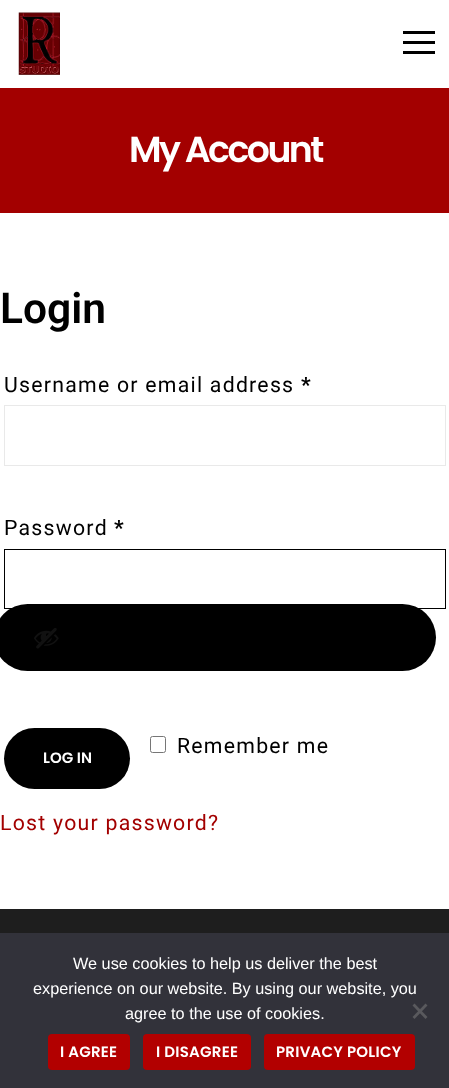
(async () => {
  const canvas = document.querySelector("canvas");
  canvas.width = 449;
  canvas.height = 1088;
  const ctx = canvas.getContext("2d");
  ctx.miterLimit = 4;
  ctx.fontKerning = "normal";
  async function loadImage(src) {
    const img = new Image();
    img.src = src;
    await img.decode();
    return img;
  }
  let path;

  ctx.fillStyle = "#ffffff";
  ctx.fillRect(0, 0, 449, 1088);
  ctx.drawImage(await loadImage("img/1.png"), 18, 12, 42, 63);
  for (const [x, y, w, h, color] of [
    [403, 31, 32, 3, "#000000"],
    [403, 41, 32, 3, "#000000"],
    [403, 51, 32, 3, "#000000"],
    [0, 88, 449, 125, "#a30000"],
  ]) {
    ctx.fillStyle = color;
    ctx.fillRect(x, y, w, h);
  }
  ctx.strokeStyle = "#e9e9e9";
  ctx.strokeRect(4.5, 405.5, 441, 60);
  ctx.strokeStyle = "#000000";
  ctx.strokeRect(4.5, 549.5, 441, 59);
  ctx.fillStyle = "#000000";
  ctx.beginPath();
  ctx.roundRect(-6, 604, 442, 67, 33.5);
  ctx.fill();
  ctx.drawImage(await loadImage("img/2.png"), 34, 628, 25, 21);
  ctx.beginPath();
  ctx.roundRect(150.5, 736.5, 15, 16, 2);
  ctx.strokeStyle = "#767676";
  ctx.stroke();
  ctx.beginPath();
  ctx.roundRect(4, 728, 126, 61, 30.5);
  ctx.fill();
  ctx.fillStyle = "#1e1e1e";
  ctx.fillRect(0, 909, 449, 24);
  ctx.fillStyle = "#32323a";
  ctx.fillRect(0, 933, 449, 155);
  ctx.fillStyle = "#59595d";
  path = new Path2D("M425.5 1003.5L427.5 1005.5L414.5 1019L412.5 1017Z");
  ctx.fill(path);
  path = new Path2D("M412.5 1005.5L414.5 1003.5L427.5 1017L425.5 1019Z");
  ctx.fill(path);
  ctx.fillStyle = "#b20000";
  ctx.beginPath();
  ctx.roundRect(48, 1034, 82, 36, 4);
  ctx.fill();
  ctx.beginPath();
  ctx.roundRect(143, 1034, 108, 36, 4);
  ctx.fill();
  ctx.beginPath();
  ctx.roundRect(264, 1034, 151, 36, 4);
  ctx.fill();
  ctx.letterSpacing = "-2.5px";
  ctx.font = "600 36.25px Poppins";
  ctx.fillStyle = "#ffffff";
  ctx.fillText("My Account", 129, 162);
  ctx.letterSpacing = "0px";
  ctx.font = "600 42.5px Roboto";
  ctx.fillStyle = "#000000";
  ctx.fillText("Login", 0, 323);
  ctx.letterSpacing = "1.25px";
  ctx.font = "21.25px Roboto";
  ctx.fillText("Username or email address", 4, 392);
  ctx.font = "bold 21.25px Roboto";
  ctx.fillText("*", 301, 392);
  ctx.font = "21.25px Roboto";
  ctx.fillText("Password", 4, 535);
  ctx.font = "bold 21.25px Roboto";
  ctx.fillText("*", 114, 535);
  ctx.font = "21.25px Roboto";
  ctx.fillText("Remember me", 177, 753);
  ctx.letterSpacing = "0px";
  ctx.font = "600 15px Poppins";
  ctx.fillStyle = "#ffffff";
  ctx.fillText("LOG IN", 43, 763);
  ctx.letterSpacing = "1.25px";
  ctx.font = "21.25px Roboto";
  ctx.fillStyle = "#a30000";
  ctx.fillText("Lost your password?", 0, 830);
  ctx.letterSpacing = "0px";
  ctx.font = "16.25px Liberation Sans";
  ctx.fillStyle = "#ffffff";
  for (const [text, x, y] of [
    ["We use cookies to help us deliver the best", 73, 969],
    ["experience on our website. By using our website, you", 33, 994],
    ["agree to the use of cookies.", 125, 1019],
  ]) {
    ctx.fillText(text, x, y);
  }
  ctx.letterSpacing = "0.25px";
  ctx.font = "600 15px Poppins";
  for (const [text, x, y] of [
    ["I AGREE", 60, 1057],
    ["I DISAGREE", 156, 1057],
    ["PRIVACY POLICY", 276, 1057],
  ]) {
    ctx.fillText(text, x, y);
  }
})();
